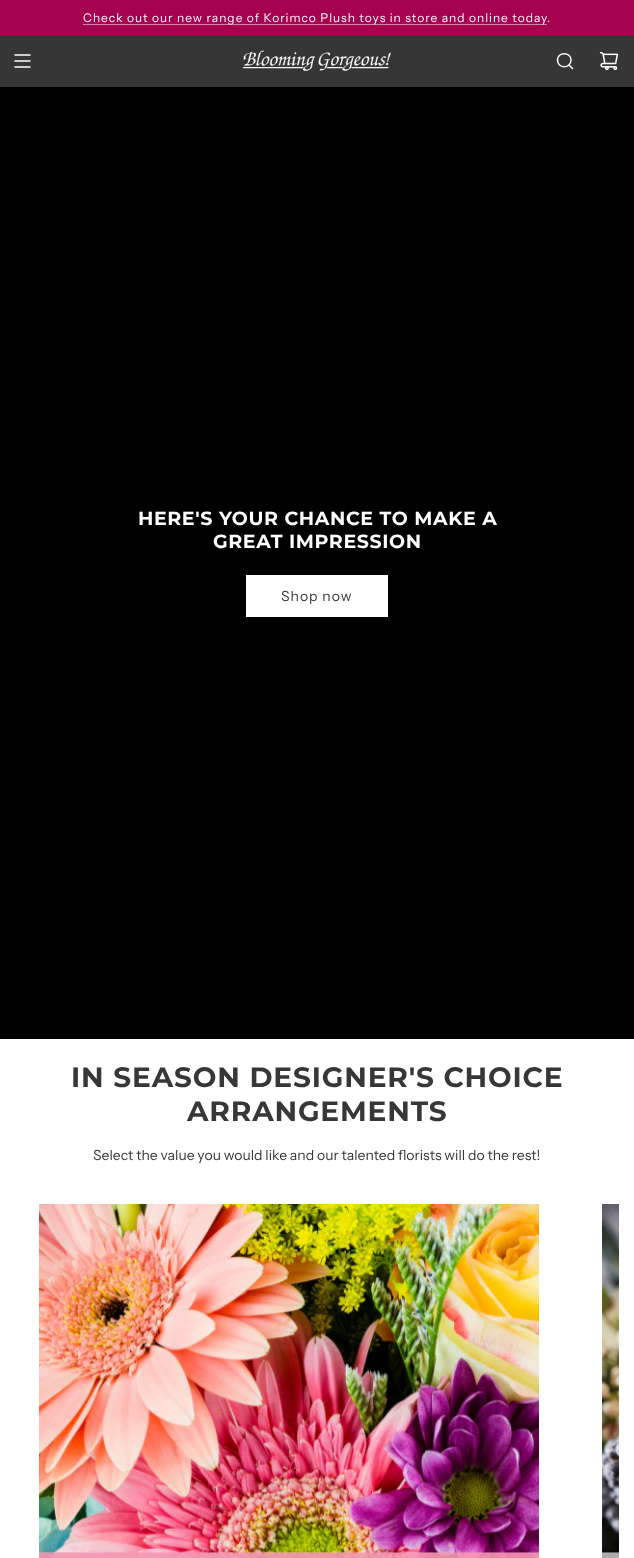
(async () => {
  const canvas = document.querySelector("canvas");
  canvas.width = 634;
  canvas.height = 1558;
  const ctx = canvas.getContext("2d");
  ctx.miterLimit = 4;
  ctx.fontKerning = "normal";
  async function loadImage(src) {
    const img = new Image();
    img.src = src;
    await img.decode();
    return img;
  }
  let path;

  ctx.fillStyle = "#ffffff";
  ctx.fillRect(0, 0, 634, 1558);
  for (const [x, y, w, h, color] of [
    [0, 0, 634, 35, "#a60150"],
    [83, 24, 464, 1, "#d380a8"],
    [0, 35, 634, 52, "#363636"],
  ]) {
    ctx.fillStyle = color;
    ctx.fillRect(x, y, w, h);
  }
  path = new Path2D("M15 55H30M15 61H30M15 67H30");
  ctx.strokeStyle = "#ffffff";
  ctx.lineWidth = 1.5;
  ctx.lineCap = "round";
  ctx.lineJoin = "round";
  ctx.stroke(path);
  ctx.drawImage(await loadImage("img/1.png"), 242, 50, 150, 22);
  path = new Path2D("M569 65L572.5 68.5M557.5 60C557.5 69 571 69 571 60C571 51.5 557.5 51.5 557.5 60Z");
  ctx.stroke(path);
  ctx.drawImage(await loadImage("img/2.png"), 599, 51, 20, 20);
  ctx.fillStyle = "#000000";
  ctx.fillRect(0, 87, 634, 952);
  ctx.fillStyle = "#ffffff";
  ctx.fillRect(246, 575, 142, 42);
  ctx.drawImage(await loadImage("img/3.png"), 39, 1204, 500, 354);
  ctx.drawImage(await loadImage("img/4.png"), 602, 1204, 17, 354);
  ctx.letterSpacing = "1px";
  ctx.font = "12px Instrument Sans";
  ctx.fillText("Check out our new range of Korimco Plush toys in store and online today", 83, 22);
  ctx.fillText(".", 547, 22);
  ctx.letterSpacing = "0.6px";
  ctx.font = "bold 19px Montserrat";
  ctx.fillText("HERE'S YOUR CHANCE TO MAKE A", 138, 525);
  ctx.fillText("GREAT IMPRESSION", 213, 548);
  ctx.letterSpacing = "1px";
  ctx.font = "14px Instrument Sans";
  ctx.fillStyle = "#373737";
  ctx.fillText("Shop now", 281, 601);
  ctx.letterSpacing = "0.85px";
  ctx.font = "bold 28px Montserrat";
  ctx.fillText("IN SEASON DESIGNER'S CHOICE", 71, 1087);
  ctx.fillText("ARRANGEMENTS", 187, 1121);
  ctx.letterSpacing = "0px";
  ctx.font = "14px Instrument Sans";
  ctx.fillText("Select the value you would like and our talented florists will do the rest!", 93, 1160);
})();
